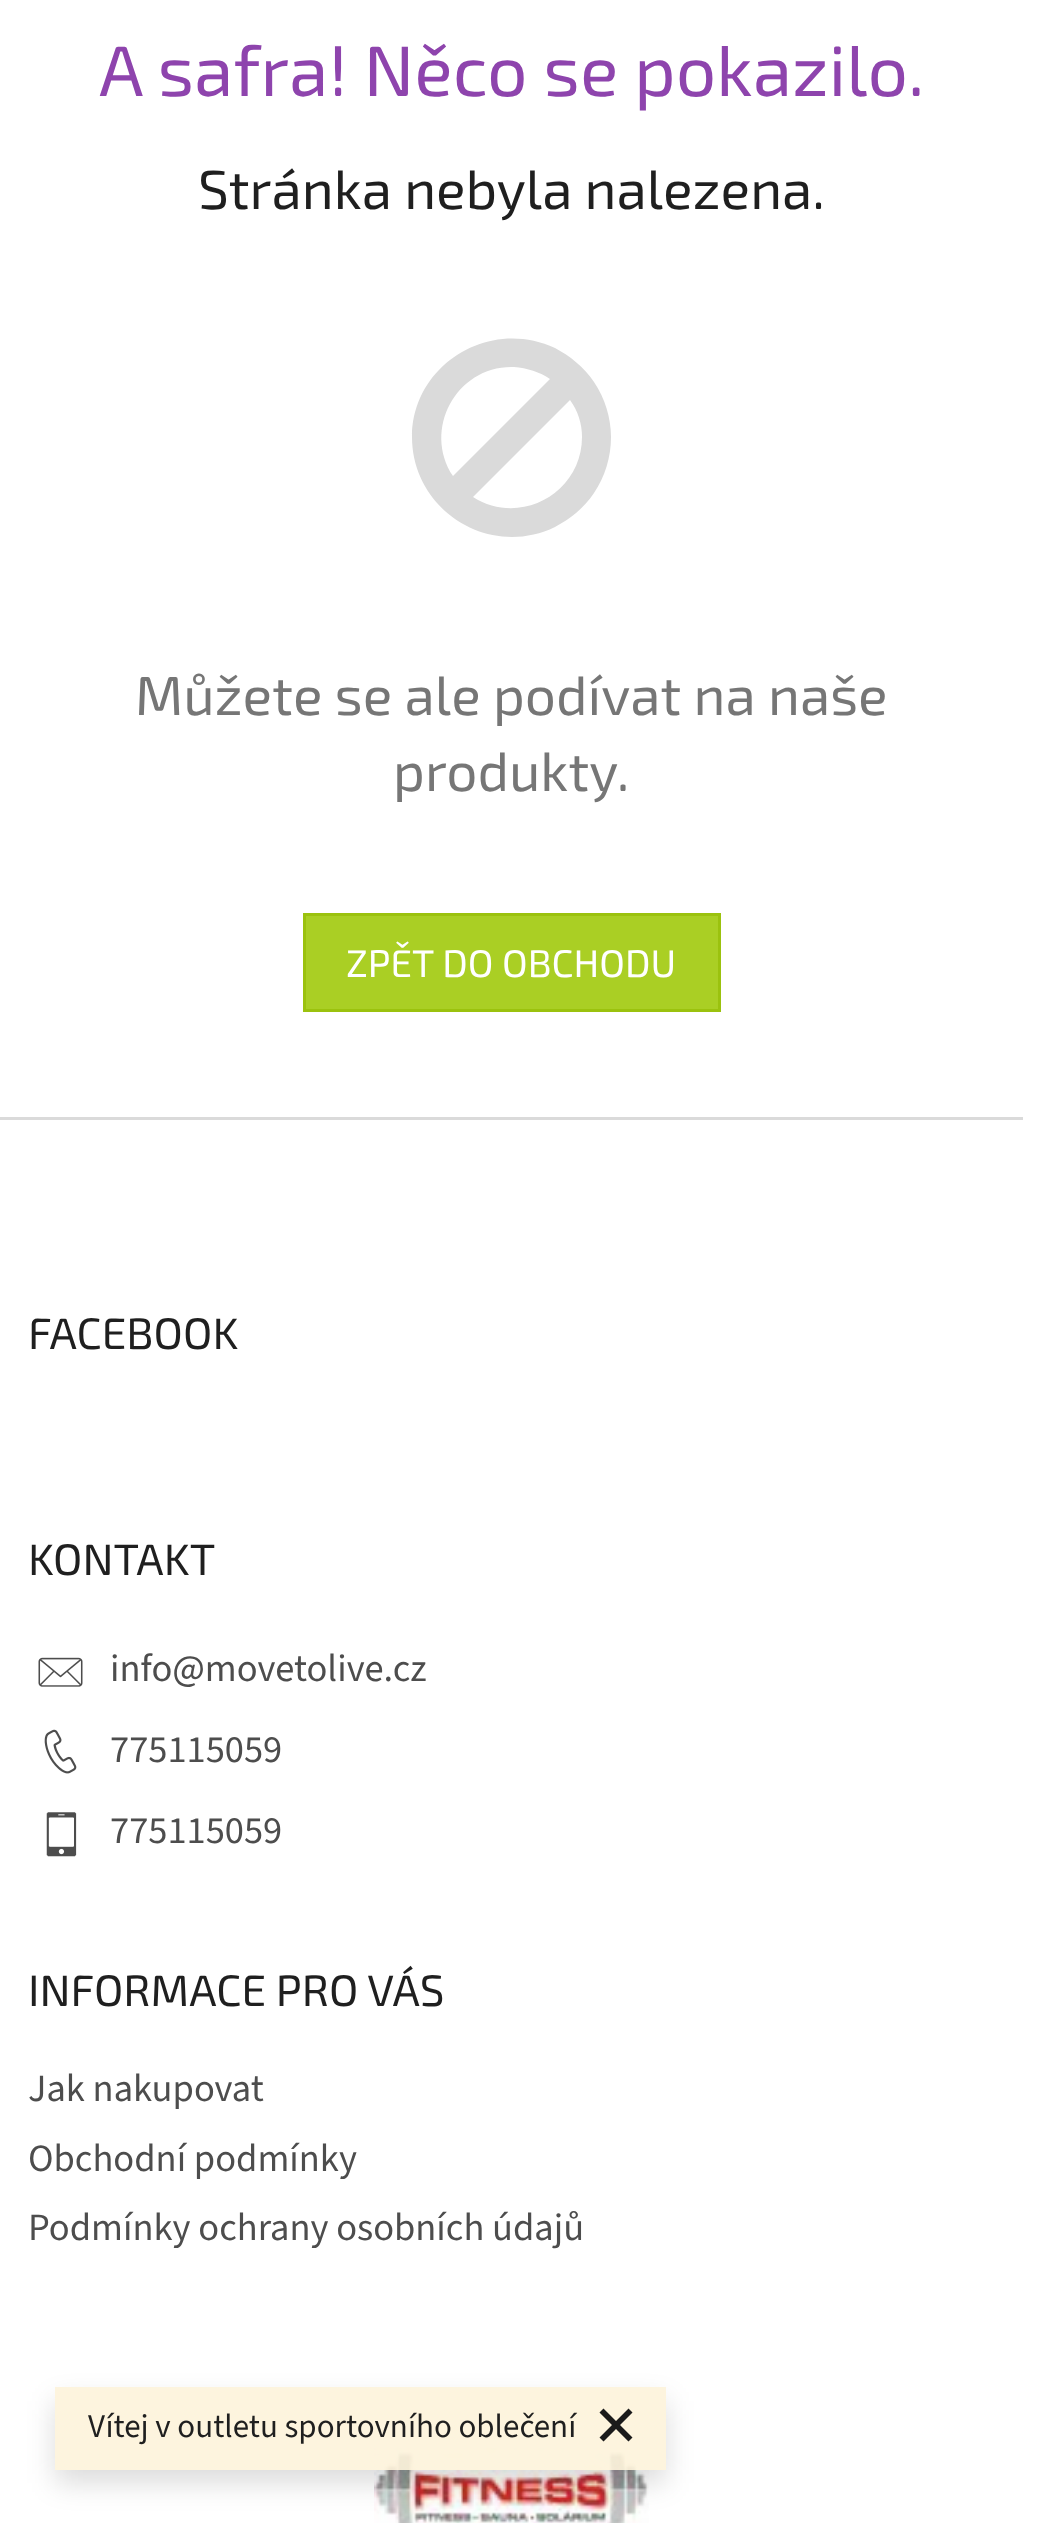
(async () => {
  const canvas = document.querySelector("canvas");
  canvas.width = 1064;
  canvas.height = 2523;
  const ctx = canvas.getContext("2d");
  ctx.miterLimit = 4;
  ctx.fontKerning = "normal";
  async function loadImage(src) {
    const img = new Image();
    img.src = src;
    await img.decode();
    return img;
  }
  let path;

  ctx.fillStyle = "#ffffff";
  ctx.fillRect(0, 0, 1064, 2523);
  ctx.fillStyle = "#dadada";
  path = new Path2D("M582 437C582 424 578 411 570 400L473 497C520 527 582 493 582 437ZM453 476L550 379C540 372 527 368 514 367C457 365 422 429 453 476ZM611 437C611 457 605 477 594 493C584 508 570 519 555 527C489 559 412 510 412 437C412 365 489 317 555 348C570 356 584 367 594 382C605 398 611 418 611 437Z");
  ctx.fill(path);
  ctx.fillStyle = "#aacf24";
  ctx.beginPath();
  ctx.rect(304.5, 914.5, 415, 96);
  ctx.fill();
  ctx.strokeStyle = "#9bc20e";
  ctx.lineWidth = 3;
  ctx.stroke();
  ctx.fillStyle = "#dadada";
  ctx.fillRect(0, 1117, 1023, 3);
  ctx.drawImage(await loadImage("img/1.png"), 38, 1657, 45, 30);
  ctx.drawImage(await loadImage("img/2.png"), 44, 1729, 33, 45);
  ctx.drawImage(await loadImage("img/3.png"), 46, 1812, 31, 45);
  ctx.drawImage(await loadImage("img/4.png"), 374, 2447, 275, 76);
  ctx.save();
  path = new Path2D("M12 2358H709V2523H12ZM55 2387H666V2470H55Z");
  ctx.clip(path, "evenodd");
  ctx.fillStyle = "rgba(0, 0, 0, 0.14)";
  ctx.filter = "blur(14px)";
  ctx.beginPath();
  ctx.rect(55, 2401, 611, 82);
  ctx.fill();
  ctx.filter = "none";
  ctx.restore();
  ctx.fillStyle = "rgba(253, 243, 218, 0.9)";
  ctx.fillRect(55, 2387, 611, 83);
  ctx.fillStyle = "#1a1a1a";
  path = new Path2D("M603.5 2408.5L599.5 2412.5L612 2425L599.5 2437.5L603.5 2441.5L616 2429L628.5 2441.5L632.5 2437.5L620 2425L632.5 2412.5L628.5 2408.5L616 2421Z");
  ctx.fill(path);
  ctx.font = "71.5px 'Exo 2'";
  ctx.fillStyle = "#8e44ad";
  ctx.fillText("A safra! Něco se pokazilo.", 99, 96);
  ctx.font = "55px 'Exo 2'";
  ctx.fillStyle = "#1f1f1f";
  ctx.fillText("Stránka nebyla nalezena.", 198, 209);
  ctx.fillStyle = "#767676";
  ctx.fillText("Můžete se ale podívat na naše", 135, 715);
  ctx.fillText("produkty.", 393, 791);
  ctx.font = "38.5px 'Exo 2'";
  ctx.fillStyle = "#ffffff";
  ctx.fillText("ZPĚT DO OBCHODU", 346, 977);
  ctx.font = "44px 'Exo 2'";
  ctx.fillStyle = "#1f1f1f";
  ctx.fillText("FACEBOOK", 28, 1349);
  ctx.fillText("KONTAKT", 28, 1575);
  ctx.font = "38.5px 'Source Sans 3'";
  ctx.fillStyle = "#4d4d4d";
  for (const [text, x, y] of [
    ["info@movetolive.cz", 110, 1681],
    ["775115059", 110, 1762],
    ["775115059", 110, 1843],
  ]) {
    ctx.fillText(text, x, y);
  }
  ctx.font = "44px 'Exo 2'";
  ctx.fillStyle = "#1f1f1f";
  ctx.fillText("INFORMACE PRO VÁS", 28, 2006);
  ctx.font = "38.5px 'Source Sans 3'";
  ctx.fillStyle = "#4d4d4d";
  for (const [text, x, y] of [
    ["Jak nakupovat", 28, 2101],
    ["Obchodní podmínky", 28, 2171],
    ["Podmínky ochrany osobních údajů", 28, 2240],
  ]) {
    ctx.fillText(text, x, y);
  }
  ctx.font = "33px 'Source Sans 3'";
  ctx.fillStyle = "#1f1f1f";
  ctx.fillText("Vítej v outletu sportovního oblečení", 88, 2437);
})();
